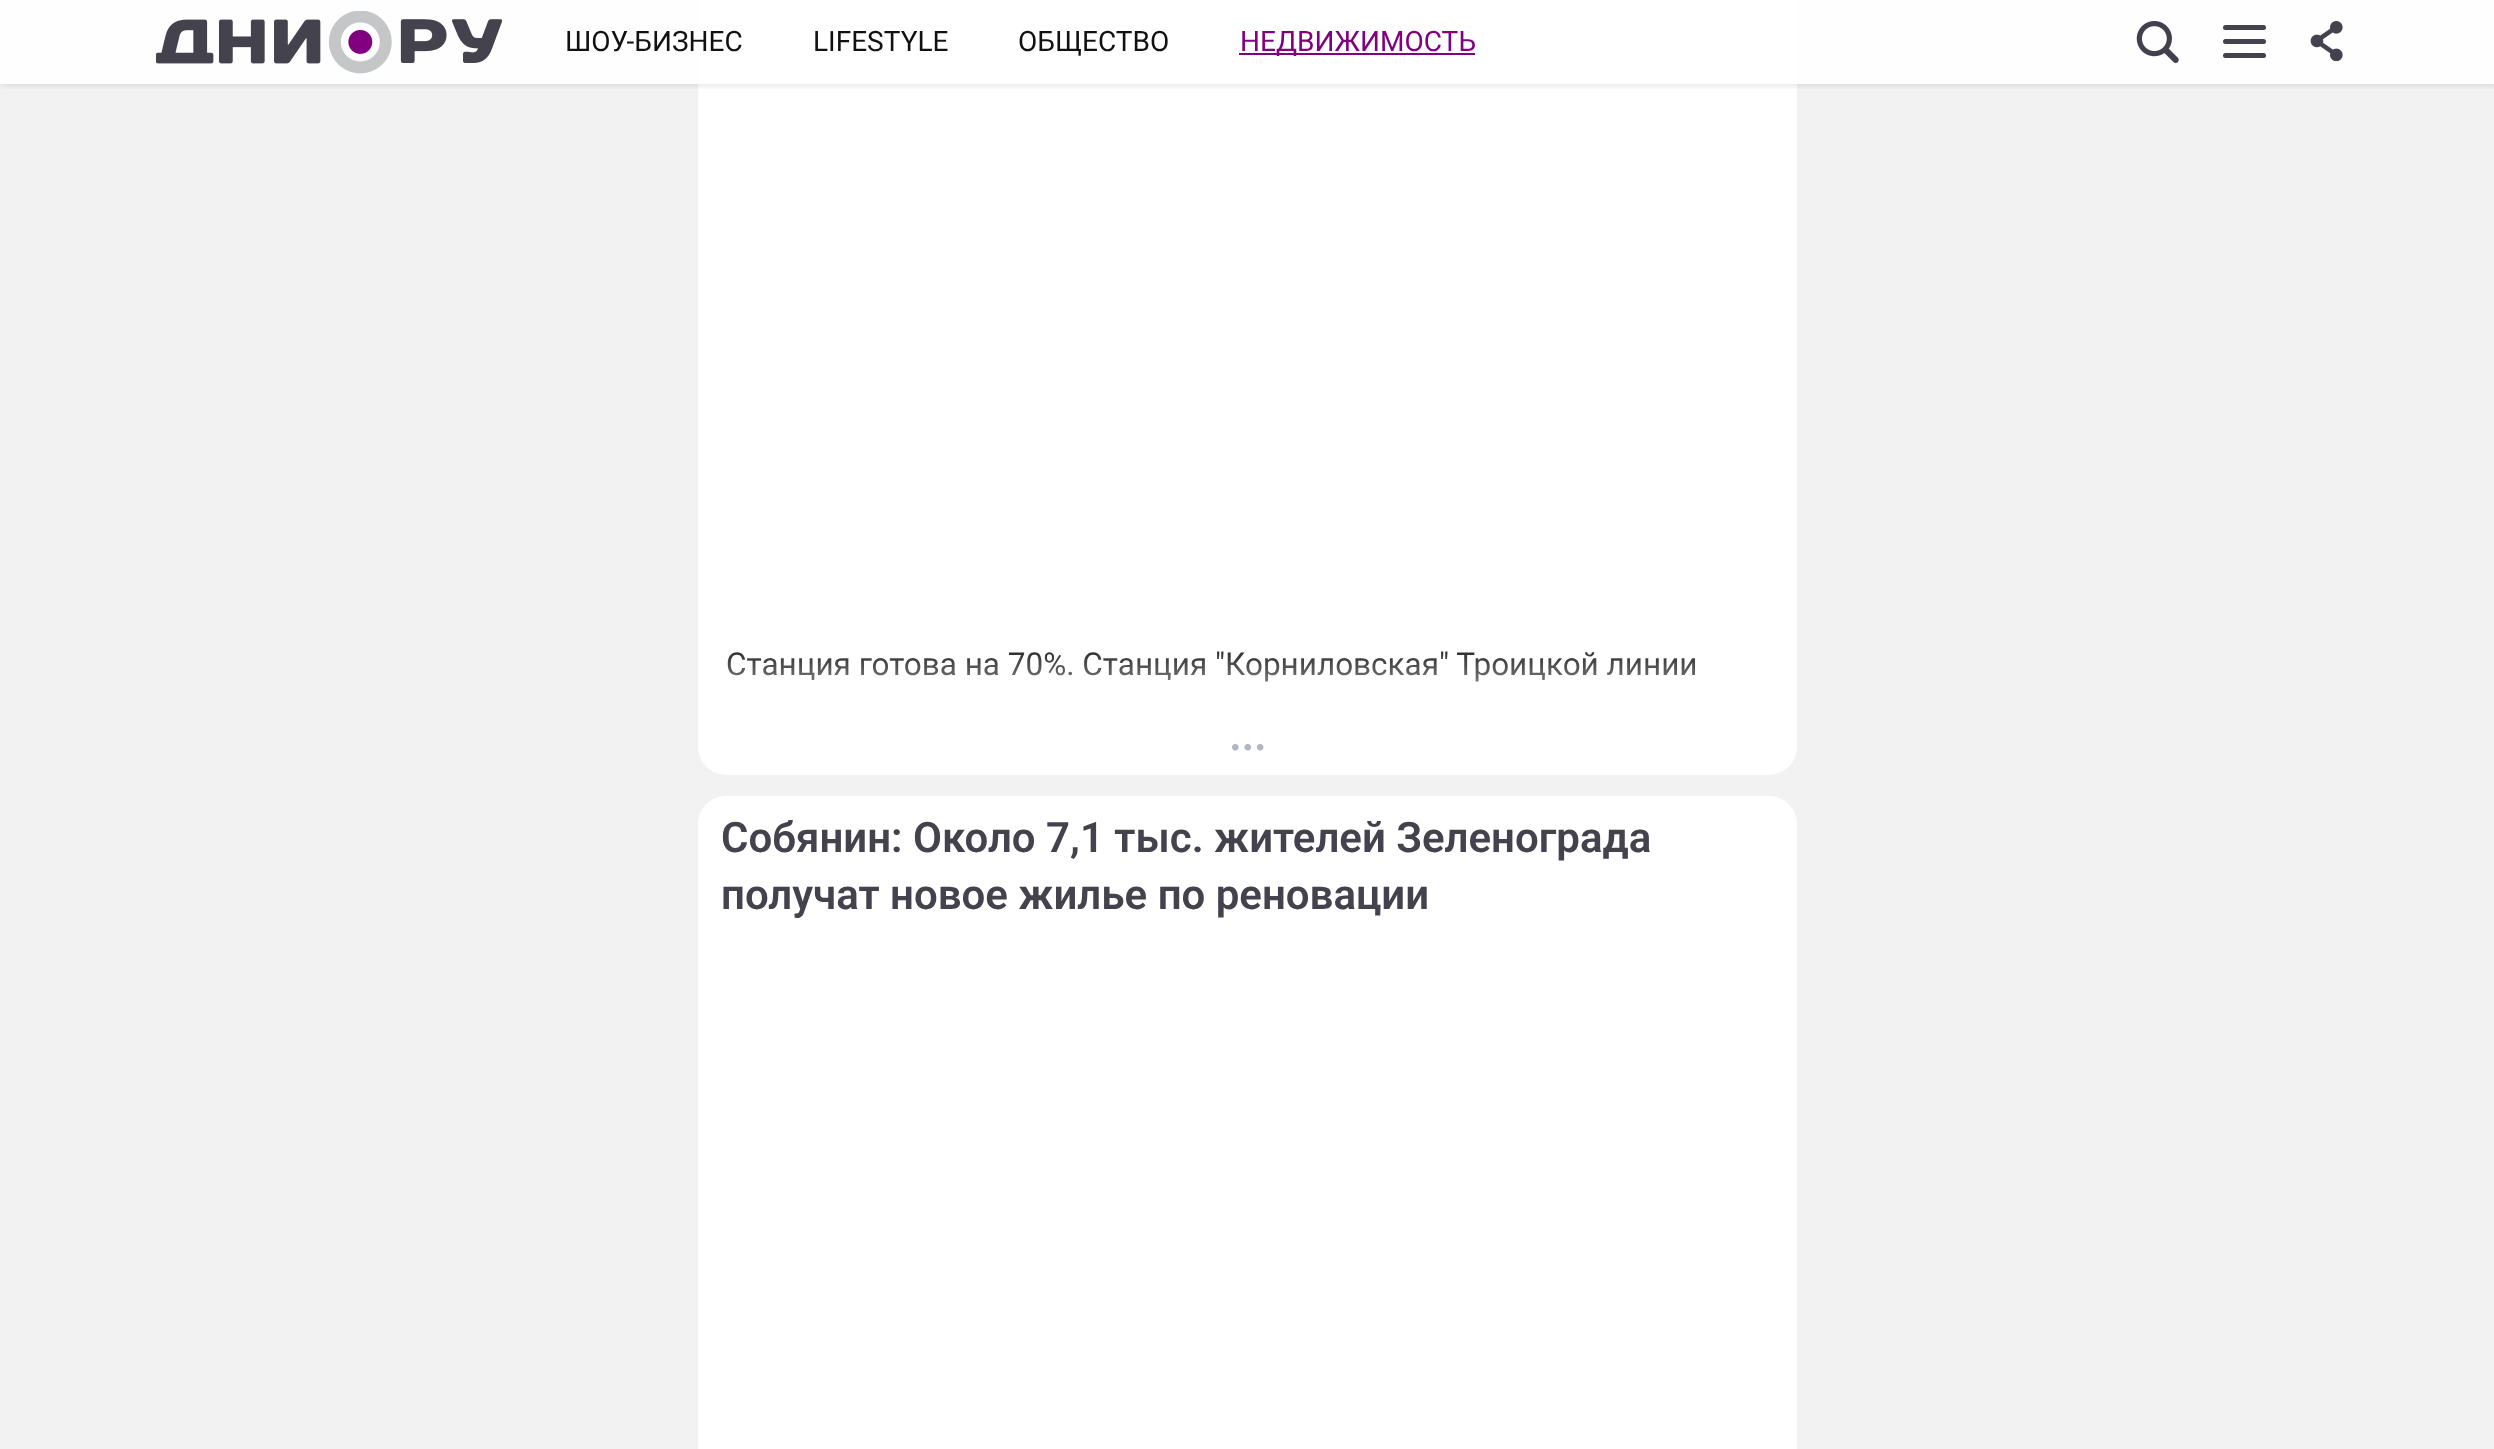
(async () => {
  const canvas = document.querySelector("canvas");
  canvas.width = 2494;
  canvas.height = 1449;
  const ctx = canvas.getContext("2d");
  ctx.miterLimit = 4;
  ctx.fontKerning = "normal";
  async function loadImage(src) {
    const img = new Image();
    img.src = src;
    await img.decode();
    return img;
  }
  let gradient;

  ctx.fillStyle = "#f2f2f2";
  ctx.fillRect(0, 0, 2494, 1449);
  ctx.fillStyle = "#fefefe";
  ctx.fillRect(0, 0, 2494, 84);
  ctx.fillStyle = "#ffffff";
  ctx.beginPath();
  ctx.roundRect(698, -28, 1099, 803, 28);
  ctx.fill();
  ctx.save();
  ctx.beginPath();
  ctx.rect(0, 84, 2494, 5);
  ctx.clip();
  ctx.fillStyle = "rgba(0, 0, 0, 0.1)";
  ctx.filter = "blur(3.5px)";
  ctx.beginPath();
  ctx.rect(2, 2, 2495, 84);
  ctx.fill();
  ctx.filter = "none";
  ctx.restore();
  ctx.drawImage(await loadImage("img/1.png"), 156, 11, 346, 63);
  ctx.fillStyle = "#800080";
  ctx.fillRect(1239, 53, 236, 2);
  ctx.drawImage(await loadImage("img/2.png"), 2136, 21, 43, 42);
  ctx.fillStyle = "#43424d";
  ctx.beginPath();
  ctx.roundRect(2223, 39, 43, 5, 2.5);
  ctx.fill();
  ctx.beginPath();
  ctx.roundRect(2223, 25, 43, 5, 2.5);
  ctx.fill();
  ctx.beginPath();
  ctx.roundRect(2223, 53, 43, 5, 2.5);
  ctx.fill();
  ctx.drawImage(await loadImage("img/3.png"), 2310, 21, 33, 40);
  ctx.drawImage(await loadImage("img/4.png"), 1232, 744, 32, 7);
  ctx.fillStyle = "#ffffff";
  ctx.beginPath();
  ctx.roundRect(698, 796, 1099, 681, 28);
  ctx.fill();
  ctx.font = "28px Roboto";
  ctx.fillStyle = "#111111";
  for (const [text, x, y] of [
    ["ШОУ-БИЗНЕС", 565, 51],
    ["LIFESTYLE", 813, 51],
    ["ОБЩЕСТВО", 1018, 51],
  ]) {
    ctx.fillText(text, x, y);
  }
  ctx.fillStyle = "#800080";
  ctx.fillText("НЕДВИЖИМОСТЬ", 1240, 51);
  ctx.font = "31.5px Roboto";
  ctx.fillStyle = "#111111";
  ctx.fillText("Станция готова на 70%. Станция \"Корниловская\" Троицкой линии", 726, 675);
  gradient = ctx.createLinearGradient(1248, 640, 1248, 728);
  gradient.addColorStop(0, "rgba(255, 255, 255, 0)");
  gradient.addColorStop(1, "rgba(255, 255, 255, 0.9)");
  ctx.fillStyle = gradient;
  ctx.fillRect(728, 651, 968, 31);
  ctx.font = "600 42px Roboto";
  ctx.fillStyle = "#43424d";
  ctx.fillText("Собянин: Около 7,1 тыс. жителей Зеленограда", 721, 852);
  ctx.fillText("получат новое жилье по реновации", 721, 909);
})();
